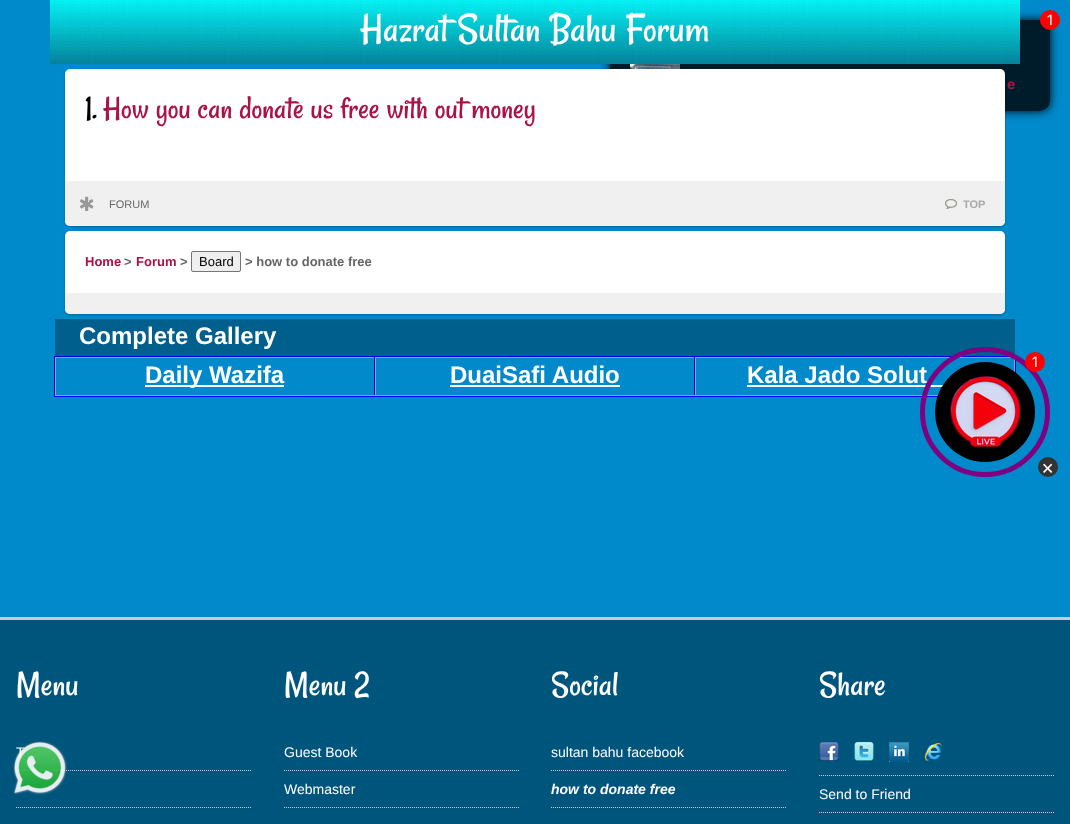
(async () => {
  const canvas = document.querySelector("canvas");
  canvas.width = 1070;
  canvas.height = 824;
  const ctx = canvas.getContext("2d");
  ctx.miterLimit = 4;
  ctx.fontKerning = "normal";
  async function loadImage(src) {
    const img = new Image();
    img.src = src;
    await img.decode();
    return img;
  }
  let path;

  ctx.fillStyle = "#0089cb";
  ctx.fillRect(0, 0, 1070, 824);
  ctx.save();
  path = new Path2D("M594 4H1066V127H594ZM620 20H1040C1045.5 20 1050 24.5 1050 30V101C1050 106.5 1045.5 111 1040 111H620C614.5 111 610 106.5 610 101V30C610 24.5 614.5 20 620 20Z");
  ctx.clip(path, "evenodd");
  ctx.fillStyle = "#000000";
  ctx.filter = "blur(5px)";
  ctx.beginPath();
  ctx.roundRect(610, 20, 440, 91, 10);
  ctx.fill();
  ctx.filter = "none";
  ctx.restore();
  ctx.fillStyle = "rgba(0, 0, 0, 0.8)";
  ctx.beginPath();
  ctx.roundRect(610, 20, 440, 91, 10);
  ctx.fill();
  ctx.drawImage(await loadImage("img/1.png"), 50, 0, 970, 64);
  ctx.drawImage(await loadImage("img/5.png"), 630, 64, 50, 5);
  ctx.fillStyle = "rgba(0, 0, 0, 0.25)";
  ctx.filter = "blur(1px)";
  ctx.beginPath();
  ctx.roundRect(65, 70, 940, 157, 5);
  ctx.fill();
  ctx.filter = "none";
  ctx.fillStyle = "#ffffff";
  ctx.beginPath();
  ctx.roundRect(65, 69, 940, 157, 5);
  ctx.fill();
  ctx.fillStyle = "#f0f0f0";
  ctx.beginPath();
  ctx.roundRect(65, 181, 940, 45, [0, 0, 5, 5]);
  ctx.fill();
  ctx.drawImage(await loadImage("img/2.png"), 80, 196, 14, 15);
  ctx.drawImage(await loadImage("img/3.png"), 945, 199, 12, 10);
  ctx.fillStyle = "rgba(0, 0, 0, 0.25)";
  ctx.filter = "blur(1px)";
  ctx.beginPath();
  ctx.roundRect(65, 232, 940, 83, 5);
  ctx.fill();
  ctx.filter = "none";
  ctx.fillStyle = "#ffffff";
  ctx.beginPath();
  ctx.roundRect(65, 231, 940, 83, 5);
  ctx.fill();
  ctx.fillStyle = "#efefef";
  ctx.beginPath();
  ctx.roundRect(191.5, 251.5, 49, 20, 1.5);
  ctx.fill();
  ctx.strokeStyle = "#767676";
  ctx.stroke();
  ctx.fillStyle = "#f0f0f0";
  ctx.beginPath();
  ctx.roundRect(65, 293, 940, 21, [0, 0, 5, 5]);
  ctx.fill();
  ctx.fillStyle = "#005f8c";
  ctx.fillRect(55, 319, 960, 37);
  ctx.strokeStyle = "#0000ff";
  ctx.strokeRect(54.5, 356.5, 961, 40);
  for (const [x, y, w, h, color] of [
    [55, 357, 640, 1, "#a1a1a1"],
    [374, 357, 1, 39, "#0000ff"],
    [55, 395, 320, 1, "#a1a1a1"],
    [55, 357, 1, 39, "#a1a1a1"],
    [145, 385, 139, 2, "#ffffff"],
    [694, 357, 1, 39, "#0000ff"],
    [375, 395, 320, 1, "#a1a1a1"],
    [375, 357, 1, 39, "#a1a1a1"],
    [450, 385, 170, 2, "#ffffff"],
  ]) {
    ctx.fillStyle = color;
    ctx.fillRect(x, y, w, h);
  }
  ctx.strokeStyle = "#a1a1a1";
  ctx.strokeRect(695.5, 357.5, 319, 38);
  ctx.fillRect(747, 385, 196, 2);
  ctx.fillStyle = "#333333";
  ctx.beginPath();
  ctx.arc(1048, 467, 10, 0, Math.PI * 2);
  ctx.fill();
  ctx.fillStyle = "#ff0000";
  ctx.beginPath();
  ctx.arc(1050, 20, 10, 0, Math.PI * 2);
  ctx.fill();
  ctx.fillStyle = "#00557d";
  ctx.fillRect(0, 620, 1070, 204);
  ctx.fillStyle = "#cccccc";
  ctx.fillRect(0, 617, 1070, 3);
  path = new Path2D("M16 770.5H252");
  ctx.strokeStyle = "#cccccc";
  ctx.setLineDash([1, 1]);
  ctx.stroke(path);
  path = new Path2D("M16 807.5H252");
  ctx.stroke(path);
  path = new Path2D("M284 770.5H519");
  ctx.stroke(path);
  path = new Path2D("M284 807.5H519");
  ctx.stroke(path);
  path = new Path2D("M551 770.5H787");
  ctx.stroke(path);
  path = new Path2D("M551 807.5H787");
  ctx.stroke(path);
  path = new Path2D("M819 775.5H1054");
  ctx.stroke(path);
  ctx.drawImage(await loadImage("img/6.png"), 819, 742, 20, 20);
  ctx.drawImage(await loadImage("img/7.png"), 854, 742, 20, 19);
  ctx.drawImage(await loadImage("img/8.png"), 889, 742, 20, 20);
  ctx.drawImage(await loadImage("img/9.png"), 924, 743, 18, 18);
  path = new Path2D("M819 812.5H1054");
  ctx.stroke(path);
  ctx.font = "42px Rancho";
  ctx.fillStyle = "#ffffff";
  ctx.fillText("Hazrat Sultan Bahu Forum", 360, 41);
  ctx.font = "33px Rancho";
  ctx.fillStyle = "#000000";
  ctx.fillText("1.", 85, 118);
  ctx.fillStyle = "#aa1345";
  ctx.fillText("How you can donate us free with out money", 103, 118);
  ctx.font = "11px Liberation Sans";
  ctx.fillStyle = "#666666";
  ctx.fillText("FORUM", 109, 208);
  ctx.font = "bold 11px Liberation Sans";
  ctx.fillStyle = "#aaaaaa";
  ctx.fillText("TOP", 963, 208);
  ctx.font = "bold 13px Liberation Sans";
  ctx.fillStyle = "#aa1345";
  ctx.fillText("Home", 85, 266);
  ctx.fillStyle = "#666666";
  ctx.fillText(">", 124, 266);
  ctx.fillStyle = "#aa1345";
  ctx.fillText("Forum", 136, 266);
  ctx.fillStyle = "#666666";
  ctx.fillText(">", 180, 266);
  ctx.font = "13px Liberation Sans";
  ctx.fillStyle = "#000000";
  ctx.fillText("Board", 199, 266);
  ctx.font = "bold 13px Liberation Sans";
  ctx.fillStyle = "#666666";
  ctx.fillText("> how to donate free", 245, 266);
  ctx.font = "bold 24px Liberation Sans";
  ctx.fillStyle = "#ffffff";
  for (const [text, x, y] of [
    ["Complete Gallery", 79, 344],
    ["Daily Wazifa", 145, 383],
    ["DuaiSafi Audio", 450, 383],
    ["Kala Jado Solut", 747, 383],
  ]) {
    ctx.fillText(text, x, y);
  }
  ctx.font = "20px Inter";
  ctx.fillText("×", 1041, 474);
  ctx.beginPath();
  ctx.arc(985, 412, 62.5, 0, Math.PI * 2);
  ctx.strokeStyle = "#800080";
  ctx.lineWidth = 5;
  ctx.setLineDash([]);
  ctx.stroke();
  ctx.drawImage(await loadImage("img/4.png"), 935, 362, 100, 100);
  ctx.fillStyle = "#ff0000";
  ctx.beginPath();
  ctx.arc(1035, 362, 10, 0, Math.PI * 2);
  ctx.fill();
  ctx.font = "14px Inter";
  ctx.fillStyle = "#ffffff";
  ctx.fillText("1", 1032, 367);
  ctx.fillText("1", 1047, 25);
  ctx.font = "bold 14px Inter";
  ctx.fillStyle = "#aa1345";
  ctx.fillText("e", 1007, 89);
  ctx.font = "36px Rancho";
  ctx.fillStyle = "#ffffff";
  ctx.fillText("Menu", 16, 695);
  ctx.font = "14px Liberation Sans";
  ctx.fillText("T", 16, 757);
  ctx.font = "36px Rancho";
  ctx.fillText("Menu 2", 284, 695);
  ctx.font = "14px Liberation Sans";
  ctx.fillText("Guest Book", 284, 757);
  ctx.fillText("Webmaster", 284, 794);
  ctx.font = "36px Rancho";
  ctx.fillText("Social", 551, 695);
  ctx.font = "14px Liberation Sans";
  ctx.fillText("sultan bahu facebook", 551, 757);
  ctx.font = "italic bold 14px Liberation Sans";
  ctx.fillText("how to donate free", 551, 794);
  ctx.font = "36px Rancho";
  ctx.fillText("Share", 819, 695);
  ctx.font = "14px Liberation Sans";
  ctx.fillText("Send to Friend", 819, 799);
  ctx.drawImage(await loadImage("img/10.png"), 13, 741, 54, 54);
})();
